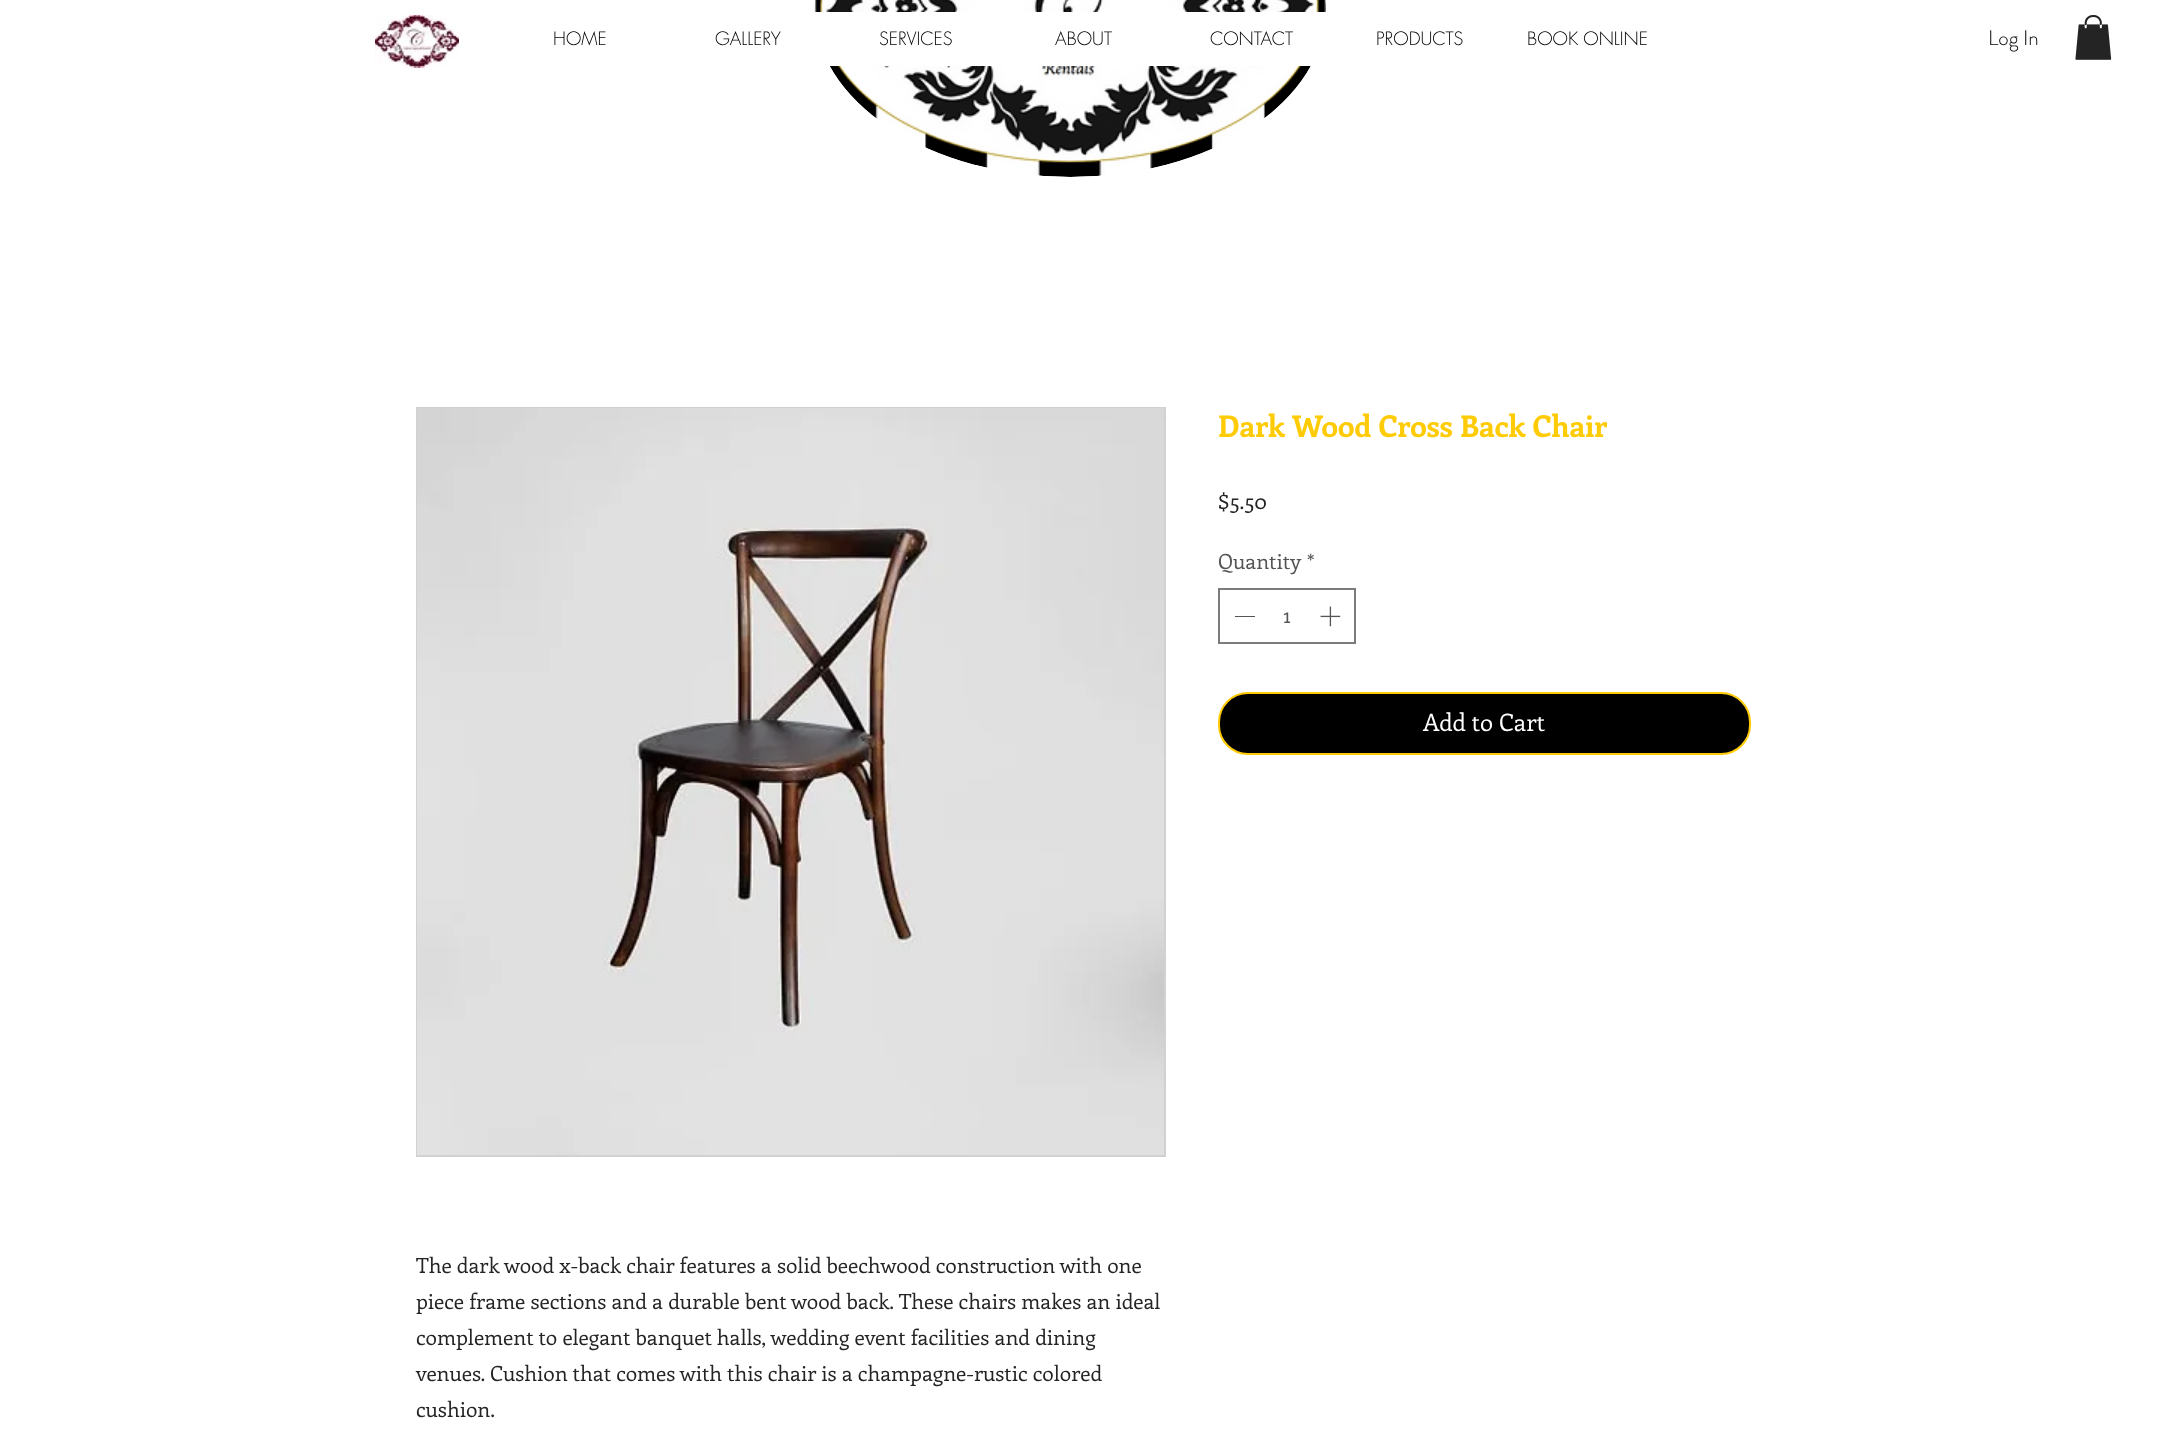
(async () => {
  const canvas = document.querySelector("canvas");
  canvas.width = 2165;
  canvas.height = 1431;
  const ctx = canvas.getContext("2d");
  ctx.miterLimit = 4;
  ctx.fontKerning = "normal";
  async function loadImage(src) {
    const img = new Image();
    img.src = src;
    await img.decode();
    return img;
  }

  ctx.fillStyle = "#ffffff";
  ctx.fillRect(0, 0, 2165, 1431);
  ctx.drawImage(await loadImage("img/3.png"), 814, 0, 512, 177);
  ctx.beginPath();
  ctx.roundRect(348, 12, 1470, 54, 27);
  ctx.fill();
  ctx.drawImage(await loadImage("img/1.png"), 375, 15, 84, 53);
  ctx.drawImage(await loadImage("img/2.png"), 2075, 15, 37, 45);
  ctx.strokeStyle = "#7c7c7c";
  ctx.lineWidth = 2;
  ctx.strokeRect(1219, 589, 136, 54);
  ctx.fillStyle = "#555555";
  ctx.fillRect(1235, 616, 20, 1);
  ctx.drawImage(await loadImage("img/4.png"), 1320, 606, 21, 21);
  ctx.fillStyle = "#000000";
  ctx.beginPath();
  ctx.roundRect(1219, 693, 531, 61, 29);
  ctx.fill();
  ctx.strokeStyle = "#ffcb05";
  ctx.stroke();
  ctx.strokeStyle = "#d1d1d1";
  ctx.strokeRect(417, 408, 748, 748);
  ctx.drawImage(await loadImage("img/5.png"), 417, 408, 747, 747);
  ctx.font = "300 18px futura";
  for (const [text, x, y] of [
    ["HOME", 553, 45],
    ["GALLERY", 715, 45],
    ["SERVICES", 879, 45],
    ["ABOUT", 1055, 45],
    ["CONTACT", 1210, 45],
    ["PRODUCTS", 1376, 45],
    ["BOOK ONLINE", 1527, 45],
  ]) {
    ctx.fillText(text, x, y);
  }
  ctx.font = "300 21px 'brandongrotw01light'";
  ctx.fillText("Log In", 1988, 45);
  ctx.font = "bold 30px Enriqueta";
  ctx.fillStyle = "#ffcb05";
  ctx.fillText("Dark Wood Cross Back Chair", 1218, 437);
  ctx.font = "21px Enriqueta";
  ctx.fillStyle = "#242424";
  ctx.fillText("$5.50", 1218, 509);
  ctx.fillStyle = "#555555";
  for (const [text, x, y] of [
    ["Quantity", 1218, 569],
    ["*", 1307, 569],
    ["1", 1283, 623],
  ]) {
    ctx.fillText(text, x, y);
  }
  ctx.font = "24px Enriqueta";
  ctx.fillStyle = "#ffffff";
  ctx.fillText("Add to Cart", 1423, 731);
  ctx.save();
  ctx.beginPath();
  ctx.rect(416, 1247, 750, 180);
  ctx.clip();
  ctx.font = "21px Enriqueta";
  ctx.fillStyle = "#242424";
  ctx.fillText("The dark wood x-back chair features a solid beechwood construction with one", 416, 1273);
  ctx.restore();
  ctx.font = "21px Enriqueta";
  ctx.fillStyle = "#242424";
  for (const [text, x, y] of [
    ["piece frame sections and a durable bent wood back. These chairs makes an ideal", 416, 1309],
    ["complement to elegant banquet halls, wedding event facilities and dining", 416, 1345],
    ["venues. Cushion that comes with this chair is a champagne-rustic colored", 416, 1381],
    ["cushion.", 416, 1417],
  ]) {
    ctx.fillText(text, x, y);
  }
})();
